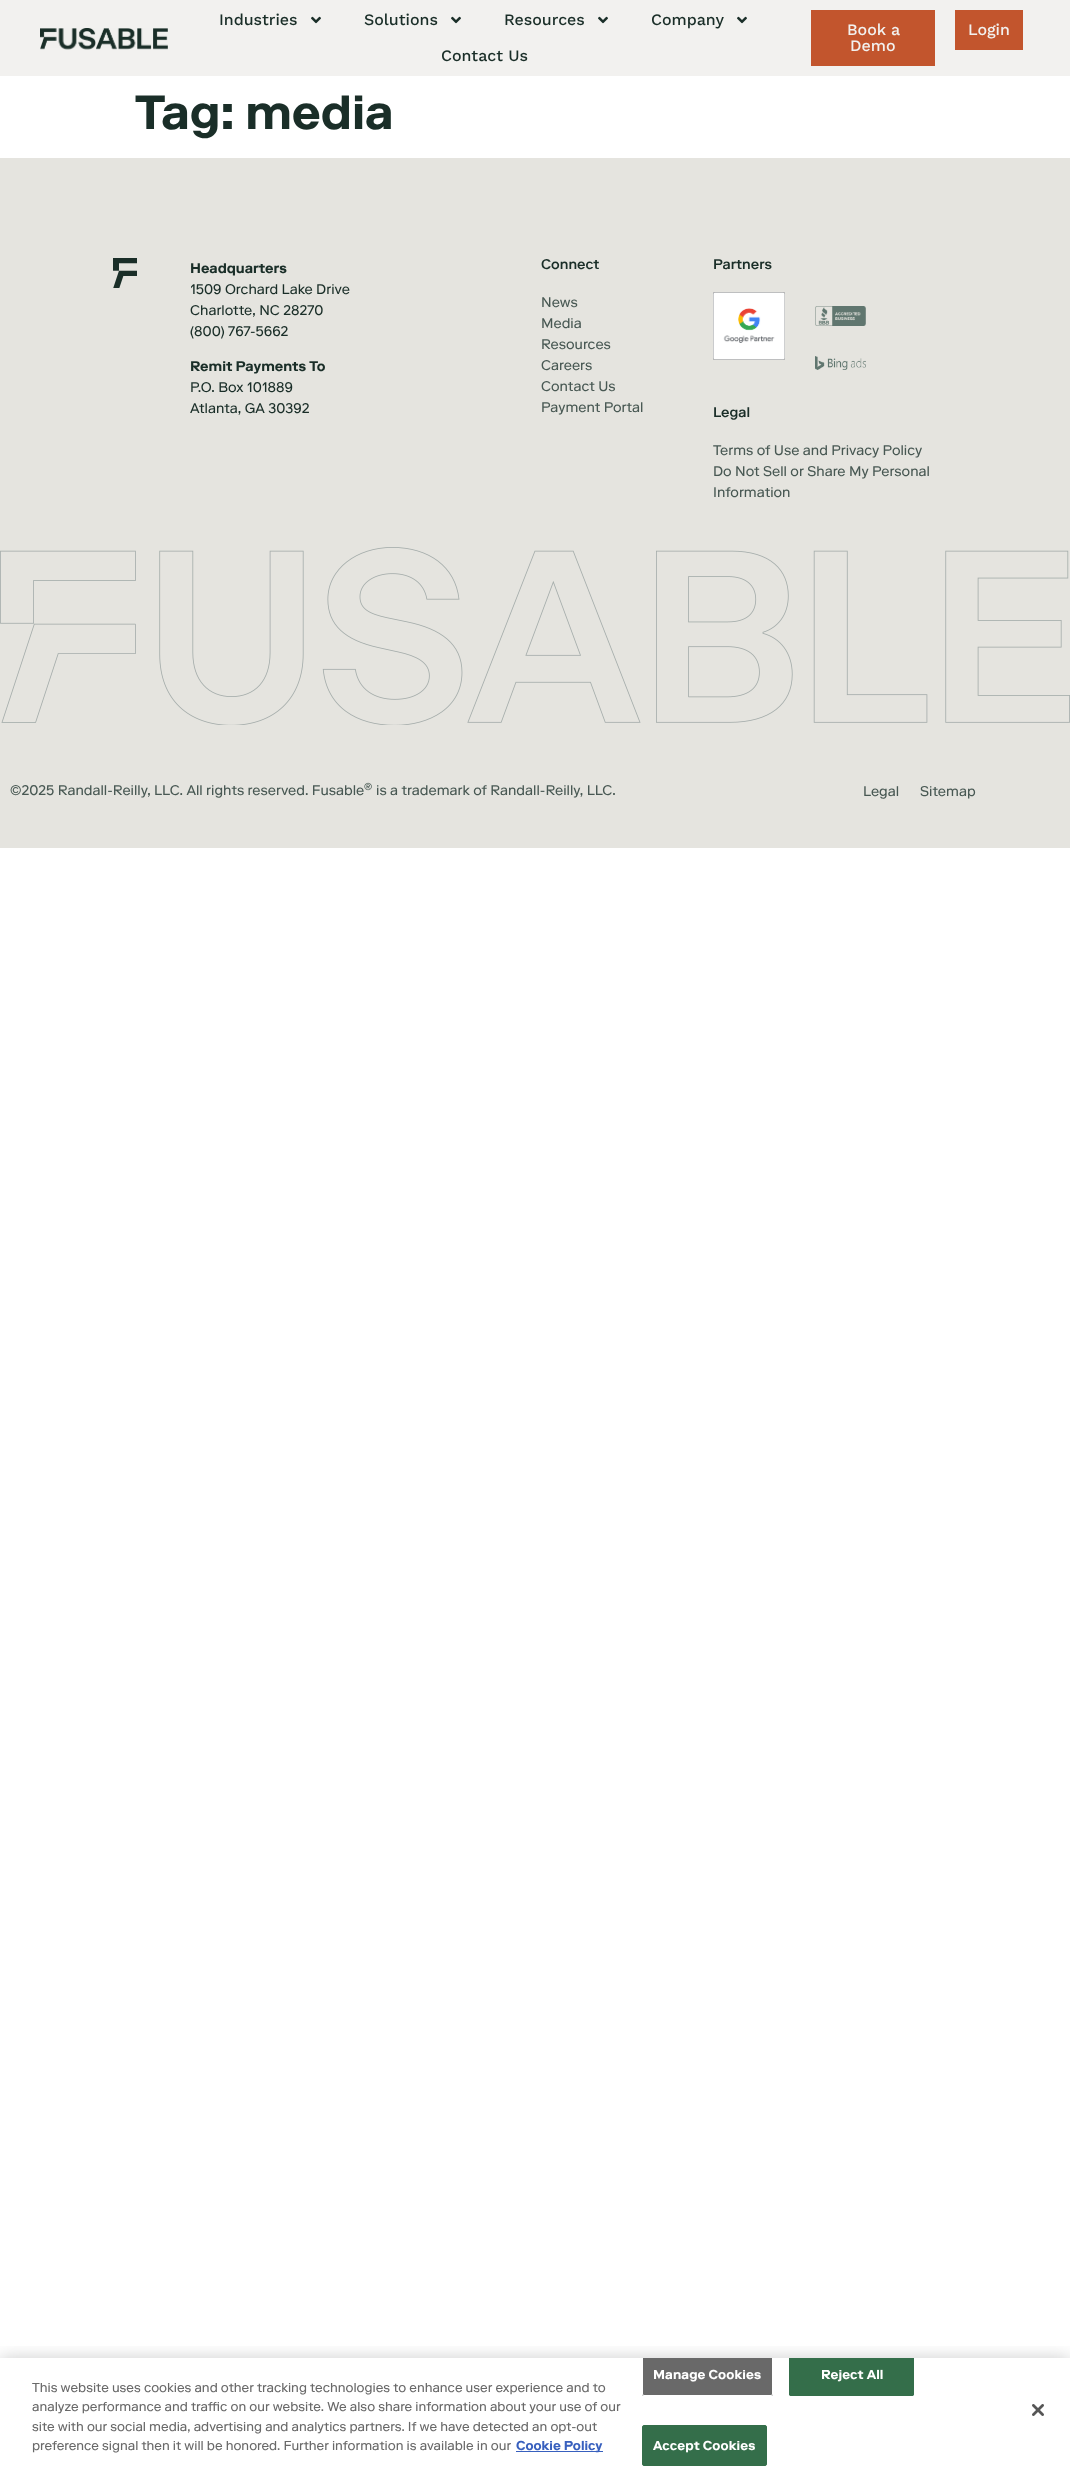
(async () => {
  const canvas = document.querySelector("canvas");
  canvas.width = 1070;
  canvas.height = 2466;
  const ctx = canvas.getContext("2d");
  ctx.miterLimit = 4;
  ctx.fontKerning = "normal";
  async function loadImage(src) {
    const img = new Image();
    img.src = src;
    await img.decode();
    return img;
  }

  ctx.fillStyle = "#ffffff";
  ctx.fillRect(0, 0, 1070, 2466);
  ctx.fillStyle = "#f2f1ef";
  ctx.fillRect(0, 0, 1070, 76);
  ctx.drawImage(await loadImage("img/1.png"), 40, 28, 128, 22);
  ctx.drawImage(await loadImage("img/2.png"), 311, 16, 10, 8);
  ctx.drawImage(await loadImage("img/2.png"), 451, 16, 10, 8);
  ctx.drawImage(await loadImage("img/2.png"), 598, 16, 10, 8);
  ctx.drawImage(await loadImage("img/2.png"), 737, 16, 10, 8);
  for (const [x, y, w, h, color] of [
    [811, 10, 124, 56, "#c2552d"],
    [955, 10, 68, 40, "#c2552d"],
    [0, 158, 1070, 690, "#e5e4df"],
  ]) {
    ctx.fillStyle = color;
    ctx.fillRect(x, y, w, h);
  }
  ctx.drawImage(await loadImage("img/3.png"), 113, 258, 24, 30);
  ctx.drawImage(await loadImage("img/4.png"), 713, 292, 72, 68);
  ctx.drawImage(await loadImage("img/5.png"), 815, 306, 51, 20);
  ctx.drawImage(await loadImage("img/6.png"), 815, 356, 51, 14);
  ctx.drawImage(await loadImage("img/7.png"), 0, 547, 1070, 178);
  ctx.save();
  ctx.beginPath();
  ctx.rect(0, 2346, 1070, 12);
  ctx.clip();
  ctx.fillStyle = "rgba(0, 0, 0, 0.2)";
  ctx.filter = "blur(9px)";
  ctx.beginPath();
  ctx.rect(0, 2358, 1070, 108);
  ctx.fill();
  ctx.filter = "none";
  ctx.restore();
  ctx.fillStyle = "#3860be";
  ctx.fillRect(516, 2451, 87, 1);
  ctx.fillStyle = "#696969";
  ctx.beginPath();
  ctx.roundRect(642, 2358, 131, 38, [0, 0, 2, 2]);
  ctx.fill();
  ctx.save();
  ctx.beginPath();
  ctx.rect(0, 2358, 1070, 108);
  ctx.clip();
  ctx.beginPath();
  ctx.roundRect(642.5, 2354.5, 130, 41, 1.5);
  ctx.strokeStyle = "#ffffff";
  ctx.stroke();
  ctx.restore();
  ctx.fillStyle = "#346e4a";
  ctx.beginPath();
  ctx.roundRect(789, 2358, 125, 38, [0, 0, 2, 2]);
  ctx.fill();
  ctx.save();
  ctx.beginPath();
  ctx.rect(0, 2358, 1070, 108);
  ctx.clip();
  ctx.beginPath();
  ctx.roundRect(789.5, 2354.5, 124, 41, 1.5);
  ctx.strokeStyle = "#346e4a";
  ctx.stroke();
  ctx.restore();
  ctx.beginPath();
  ctx.roundRect(642.5, 2425.5, 124, 40, 1.5);
  ctx.fill();
  ctx.strokeStyle = "#346e4a";
  ctx.stroke();
  ctx.drawImage(await loadImage("img/8.png"), 1032, 2404, 12, 12);
  ctx.font = "500 16px Work Sans";
  ctx.fillStyle = "#1a2e28";
  for (const [text, x, y] of [
    ["Industries", 219, 25],
    ["Solutions", 364, 25],
    ["Resources", 504, 25],
    ["Company", 651, 25],
    ["Contact Us", 441, 61],
  ]) {
    ctx.fillText(text, x, y);
  }
  ctx.fillStyle = "#f2f1ef";
  for (const [text, x, y] of [
    ["Book a", 847, 35],
    ["Demo", 850, 51],
    ["Login", 968, 35],
  ]) {
    ctx.fillText(text, x, y);
  }
  ctx.font = "bold 48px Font";
  ctx.fillStyle = "#1a2e28";
  ctx.fillText("Tag: media", 135, 129);
  ctx.font = "bold 14px Font";
  ctx.fillText("Headquarters", 190, 273);
  ctx.font = "14px Font";
  for (const [text, x, y] of [
    ["1509 Orchard Lake Drive", 190, 294],
    ["Charlotte, NC 28270", 190, 315],
    ["(800) 767-5662", 190, 336],
  ]) {
    ctx.fillText(text, x, y);
  }
  ctx.font = "bold 14px Font";
  ctx.fillText("Remit Payments To", 190, 371);
  ctx.font = "14px Font";
  ctx.fillText("P.O. Box 101889", 190, 392);
  ctx.fillText("Atlanta, GA 30392", 190, 413);
  ctx.font = "500 14px Font";
  ctx.fillText("Connect", 541, 269);
  ctx.font = "14px Font";
  ctx.fillStyle = "#485853";
  for (const [text, x, y] of [
    ["News", 541, 307],
    ["Media", 541, 328],
    ["Resources", 541, 349],
    ["Careers", 541, 370],
    ["Contact Us", 541, 391],
    ["Payment Portal", 541, 412],
  ]) {
    ctx.fillText(text, x, y);
  }
  ctx.font = "500 14px Font";
  ctx.fillStyle = "#1a2e28";
  ctx.fillText("Partners", 713, 269);
  ctx.fillText("Legal", 713, 417);
  ctx.font = "14px Font";
  ctx.fillStyle = "#485853";
  for (const [text, x, y] of [
    ["Terms of Use and Privacy Policy", 713, 455],
    ["Do Not Sell or Share My Personal", 713, 476],
    ["Information", 713, 497],
    ["©2025 Randall-Reilly, LLC. All rights reserved. Fusable", 10, 795],
  ]) {
    ctx.fillText(text, x, y);
  }
  ctx.font = "10px Font";
  ctx.fillText("®", 364, 790);
  ctx.font = "14px Font";
  for (const [text, x, y] of [
    ["is a trademark of Randall-Reilly, LLC.", 376, 795],
    ["Legal", 863, 796],
    ["Sitemap", 920, 796],
  ]) {
    ctx.fillText(text, x, y);
  }
  ctx.font = "13px Font";
  ctx.fillStyle = "#696969";
  for (const [text, x, y] of [
    ["This website uses cookies and other tracking technologies to enhance user experience and to", 32, 2392],
    ["analyze performance and traffic on our website. We also share information about your use of our", 32, 2411],
    ["site with our social media, advertising and analytics partners. If we have detected an opt-out", 32, 2431],
    ["preference signal then it will be honored. Further information is available in our", 32, 2450],
  ]) {
    ctx.fillText(text, x, y);
  }
  ctx.font = "bold 13px Font";
  ctx.fillStyle = "#3860be";
  ctx.fillText("Cookie Policy", 516, 2450);
  ctx.letterSpacing = "0.1px";
  ctx.fillStyle = "#ffffff";
  for (const [text, x, y] of [
    ["Manage Cookies", 653, 2379],
    ["Reject All", 821, 2379],
    ["Accept Cookies", 653, 2450],
  ]) {
    ctx.fillText(text, x, y);
  }
})();
